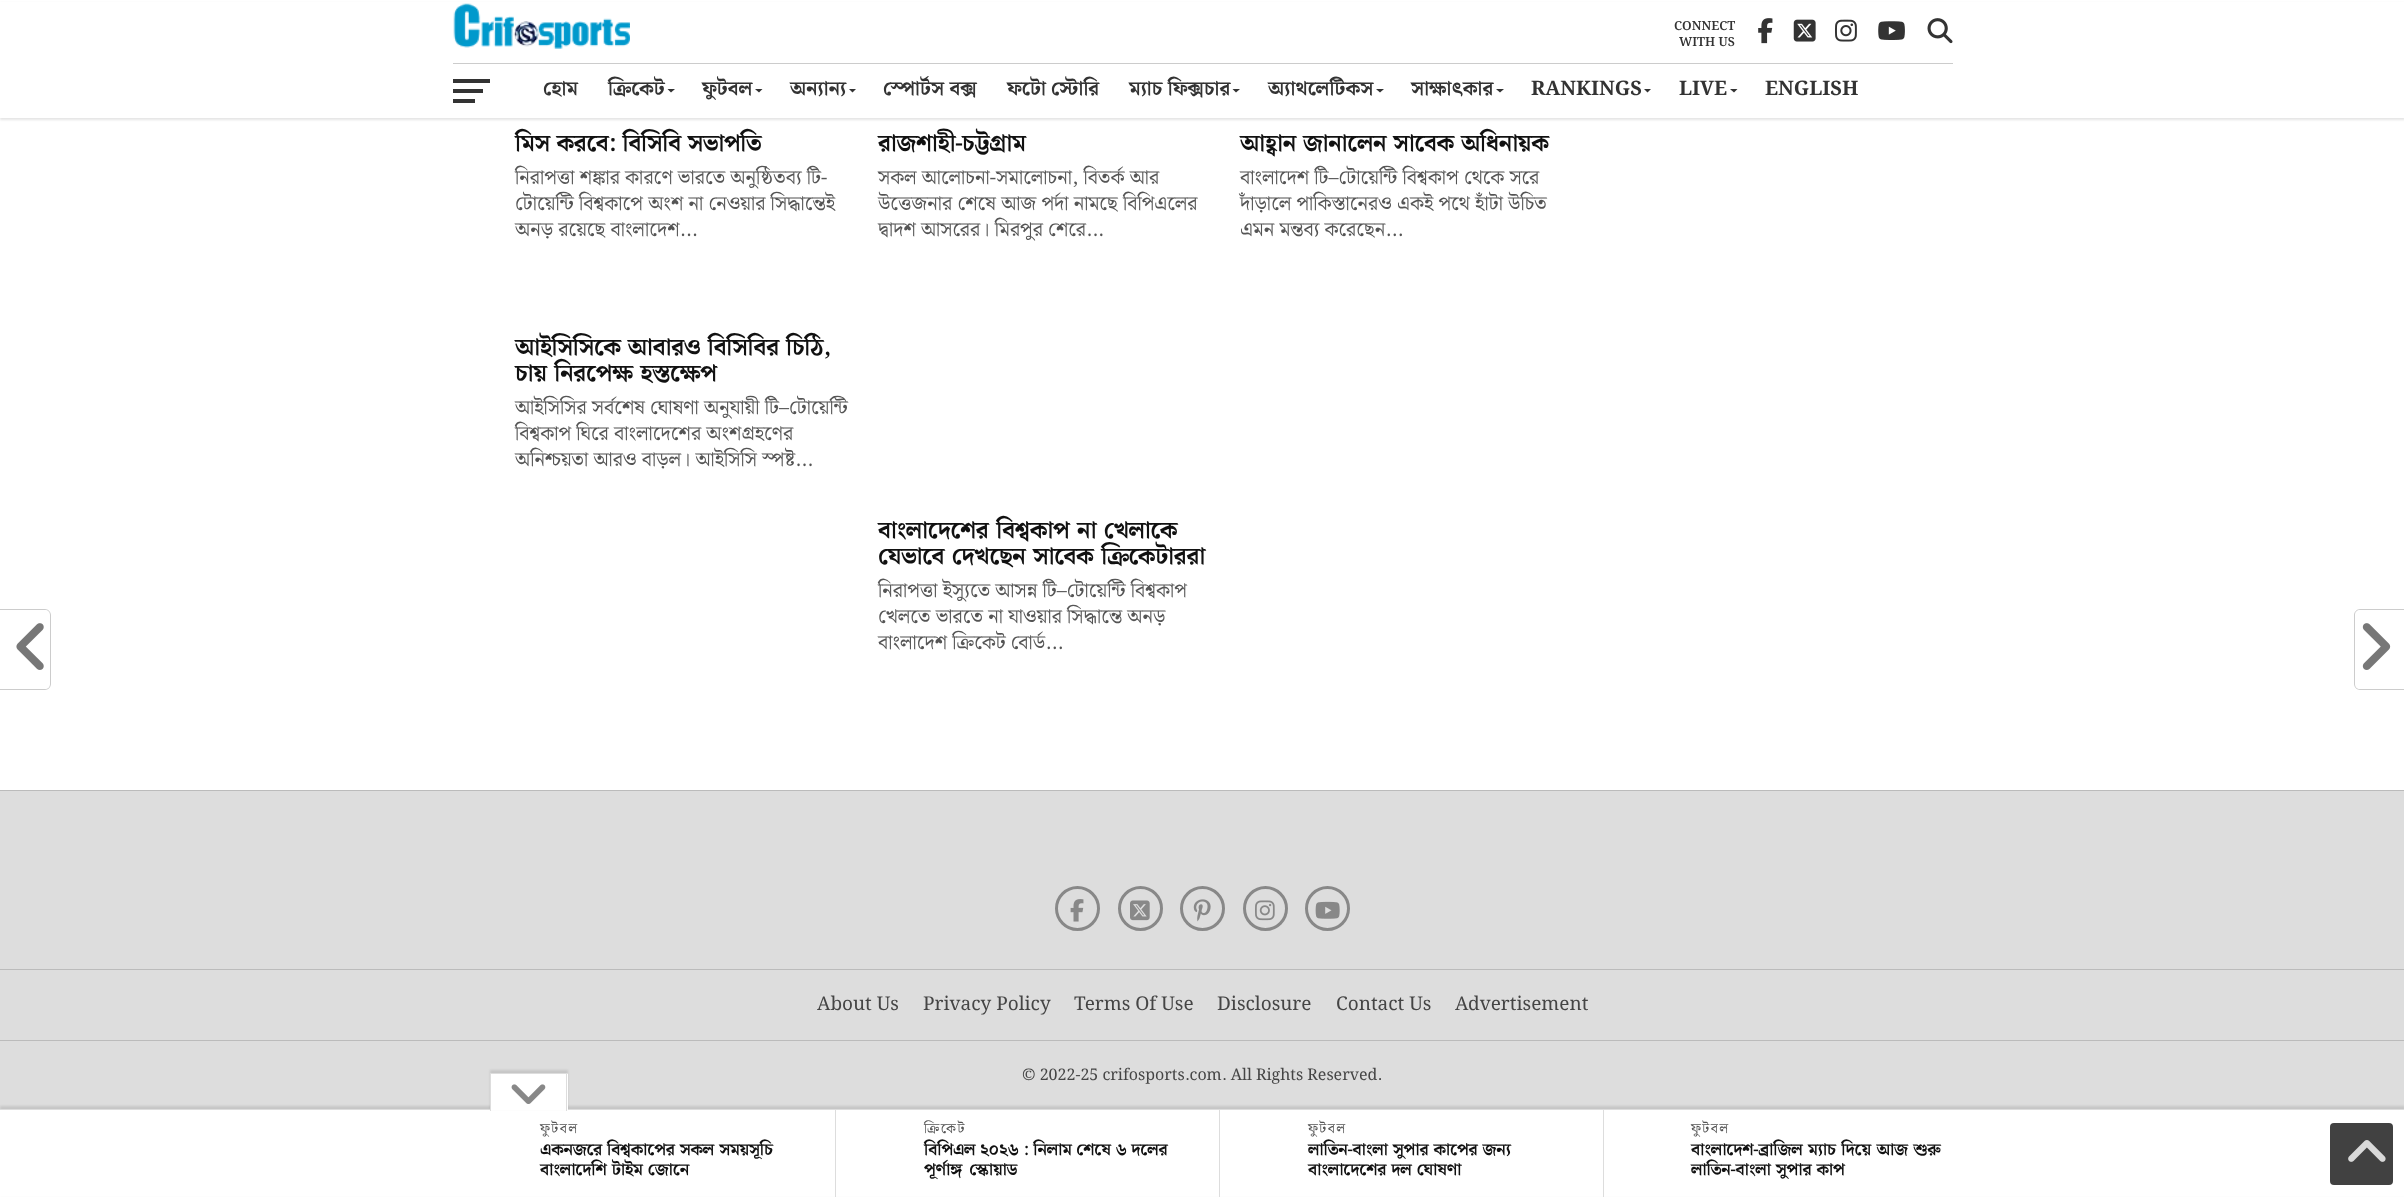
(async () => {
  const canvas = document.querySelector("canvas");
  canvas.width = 2404;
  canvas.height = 1197;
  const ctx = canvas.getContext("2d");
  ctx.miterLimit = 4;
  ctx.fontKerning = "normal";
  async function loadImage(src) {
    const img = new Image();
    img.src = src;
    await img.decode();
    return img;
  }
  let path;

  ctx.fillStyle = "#ffffff";
  ctx.fillRect(0, 0, 2404, 1197);
  ctx.fillStyle = "rgba(0, 0, 0, 0.1)";
  ctx.filter = "blur(1px)";
  ctx.beginPath();
  ctx.rect(0, 3, 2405, 117);
  ctx.fill();
  ctx.filter = "none";
  ctx.fillStyle = "#ffffff";
  ctx.fillRect(0, 2, 2404, 116);
  ctx.fillStyle = "#cccccc";
  ctx.fillRect(453, 63, 1500, 1);
  ctx.drawImage(await loadImage("img/1.png"), 453, 3, 177, 46);
  ctx.drawImage(await loadImage("img/2.png"), 1758, 18, 15, 26);
  ctx.drawImage(await loadImage("img/3.png"), 1793, 19, 23, 23);
  ctx.drawImage(await loadImage("img/4.png"), 1835, 19, 22, 23);
  ctx.drawImage(await loadImage("img/5.png"), 1878, 21, 27, 19);
  ctx.drawImage(await loadImage("img/6.png"), 1927, 18, 26, 26);
  for (const [x, y, w, h, color] of [
    [453, 79, 37, 4, "#333333"],
    [453, 89, 30, 4, "#333333"],
    [453, 99, 22, 4, "#333333"],
  ]) {
    ctx.fillStyle = color;
    ctx.fillRect(x, y, w, h);
  }
  path = new Path2D("M667.5 89H675L671 92.5Z");
  ctx.fill(path);
  path = new Path2D("M755 89H762.5L759 92.5Z");
  ctx.fill(path);
  path = new Path2D("M849 89H856L852.5 92.5Z");
  ctx.fill(path);
  path = new Path2D("M1232.5 89H1240L1236 92.5Z");
  ctx.fill(path);
  path = new Path2D("M1376 89H1384L1380 92.5Z");
  ctx.fill(path);
  path = new Path2D("M1496 89H1504L1500 92.5Z");
  ctx.fill(path);
  path = new Path2D("M1644 89H1651L1647.5 92.5Z");
  ctx.fill(path);
  path = new Path2D("M1730 89H1737.5L1734 92.5Z");
  ctx.fill(path);
  ctx.fillStyle = "#cccccc";
  path = new Path2D("M0 609H45C48 609 51 612 51 615V684C51 687 48 690 45 690H0ZM0 610H45C48 610 50 612 50 615V684C50 687 48 689 45 689H0Z");
  ctx.fill(path, "evenodd");
  ctx.drawImage(await loadImage("img/7.png"), 16, 623, 28, 47);
  path = new Path2D("M2360 609H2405V690H2360C2357 690 2354 687 2354 684V615C2354 612 2357 609 2360 609ZM2360 610H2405V689H2360C2357 689 2355 687 2355 684V615C2355 612 2357 610 2360 610Z");
  ctx.fill(path, "evenodd");
  ctx.drawImage(await loadImage("img/8.png"), 2362, 623, 29, 47);
  ctx.fillStyle = "#dddddd";
  ctx.fillRect(0, 791, 2404, 318);
  ctx.fillStyle = "#bbbbbb";
  ctx.fillRect(0, 790, 2404, 1);
  ctx.beginPath();
  ctx.arc(1077.5, 908.5, 21, 0, Math.PI * 2);
  ctx.strokeStyle = "#888888";
  ctx.lineWidth = 3;
  ctx.stroke();
  ctx.drawImage(await loadImage("img/9.png"), 1070, 899, 14, 23);
  ctx.beginPath();
  ctx.arc(1140.5, 908.5, 21, 0, Math.PI * 2);
  ctx.stroke();
  ctx.drawImage(await loadImage("img/10.png"), 1130, 900, 20, 21);
  ctx.beginPath();
  ctx.arc(1202.5, 908.5, 21, 0, Math.PI * 2);
  ctx.stroke();
  ctx.drawImage(await loadImage("img/11.png"), 1193, 899, 18, 23);
  ctx.beginPath();
  ctx.arc(1265.5, 908.5, 21, 0, Math.PI * 2);
  ctx.stroke();
  ctx.drawImage(await loadImage("img/12.png"), 1255, 900, 20, 21);
  ctx.beginPath();
  ctx.arc(1327.5, 908.5, 21, 0, Math.PI * 2);
  ctx.stroke();
  ctx.drawImage(await loadImage("img/13.png"), 1315, 901, 25, 18);
  ctx.fillRect(0, 969, 2404, 1);
  ctx.fillRect(0, 1040, 2404, 1);
  ctx.fillStyle = "rgba(0, 0, 0, 0.1)";
  ctx.filter = "blur(1px)";
  ctx.beginPath();
  ctx.rect(0, 1106, 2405, 89);
  ctx.fill();
  ctx.filter = "none";
  ctx.fillStyle = "#ffffff";
  ctx.fillRect(0, 1110, 2404, 86);
  ctx.fillStyle = "#dddddd";
  ctx.fillRect(0, 1109, 2404, 1);
  ctx.fillStyle = "rgba(0, 0, 0, 0.1)";
  ctx.filter = "blur(1px)";
  ctx.beginPath();
  ctx.rect(490, 1070, 78, 39);
  ctx.fill();
  ctx.filter = "none";
  for (const [x, y, w, h, color] of [
    [491, 1074, 77, 36, "#ffffff"],
    [490, 1073, 78, 1, "#dddddd"],
    [566, 1073, 1, 38, "#dddddd"],
    [490, 1073, 1, 38, "#dddddd"],
  ]) {
    ctx.fillStyle = color;
    ctx.fillRect(x, y, w, h);
  }
  ctx.drawImage(await loadImage("img/14.png"), 511, 1084, 35, 20);
  for (const [x, y, w, h, color] of [
    [835, 1110, 1, 87, "#dddddd"],
    [1219, 1110, 1, 87, "#dddddd"],
    [1603, 1110, 1, 87, "#dddddd"],
  ]) {
    ctx.fillStyle = color;
    ctx.fillRect(x, y, w, h);
  }
  ctx.fillStyle = "#414141";
  ctx.beginPath();
  ctx.roundRect(2330, 1123, 63, 62, 4);
  ctx.fill();
  ctx.drawImage(await loadImage("img/15.png"), 2348, 1140, 38, 22);
  ctx.font = "600 12.5px Noto Serif Bengali";
  ctx.fillStyle = "#333333";
  ctx.fillText("CONNECT", 1674, 30);
  ctx.fillText("WITH US", 1679, 46);
  ctx.font = "bold 20px Noto Serif Bengali";
  for (const [text, x, y] of [
    ["হোম", 543, 95],
    ["ক্রিকেট", 608, 95],
    ["ফুটবল", 702, 95],
    ["অন্যান্য", 790, 95],
    ["স্পোর্টস বক্স", 883, 95],
    ["ফটো স্টোরি", 1007, 95],
    ["ম্যাচ ফিক্সচার", 1129, 95],
    ["অ্যাথলেটিকস", 1268, 95],
    ["সাক্ষাৎকার", 1411, 95],
    ["RANKINGS", 1531, 95],
    ["LIVE", 1679, 95],
    ["ENGLISH", 1765, 95],
  ]) {
    ctx.fillText(text, x, y);
  }
  ctx.letterSpacing = "-0.5px";
  ctx.wordSpacing = "1px";
  ctx.font = "bold 24px Noto Serif Bengali";
  ctx.fillStyle = "#111111";
  ctx.fillText("মিস করবে: বিসিবি সভাপতি", 515, 151);
  ctx.letterSpacing = "0px";
  ctx.wordSpacing = "0px";
  ctx.font = "20px Noto Serif Bengali";
  ctx.fillStyle = "#555555";
  for (const [text, x, y] of [
    ["নিরাপত্তা শঙ্কার কারণে ভারতে অনুষ্ঠিতব্য টি-", 515, 184],
    ["টোয়েন্টি বিশ্বকাপে অংশ না নেওয়ার সিদ্ধান্তেই", 515, 210],
    ["অনড় রয়েছে বাংলাদেশ...", 515, 236],
  ]) {
    ctx.fillText(text, x, y);
  }
  ctx.letterSpacing = "-0.5px";
  ctx.font = "bold 24px Noto Serif Bengali";
  ctx.fillStyle = "#111111";
  ctx.fillText("রাজশাহী-চট্টগ্রাম", 878, 151);
  ctx.letterSpacing = "0px";
  ctx.font = "20px Noto Serif Bengali";
  ctx.fillStyle = "#555555";
  for (const [text, x, y] of [
    ["সকল আলোচনা-সমালোচনা, বিতর্ক আর", 878, 184],
    ["উত্তেজনার শেষে আজ পর্দা নামছে বিপিএলের", 878, 210],
    ["দ্বাদশ আসরের। মিরপুর শেরে...", 878, 236],
  ]) {
    ctx.fillText(text, x, y);
  }
  ctx.letterSpacing = "-0.5px";
  ctx.wordSpacing = "1.5px";
  ctx.font = "bold 24px Noto Serif Bengali";
  ctx.fillStyle = "#111111";
  ctx.fillText("আহ্বান জানালেন সাবেক অধিনায়ক", 1240, 151);
  ctx.letterSpacing = "0px";
  ctx.wordSpacing = "0px";
  ctx.font = "20px Noto Serif Bengali";
  ctx.fillStyle = "#555555";
  for (const [text, x, y] of [
    ["বাংলাদেশ টি–টোয়েন্টি বিশ্বকাপ থেকে সরে", 1240, 184],
    ["দাঁড়ালে পাকিস্তানেরও একই পথে হাঁটা উচিত", 1240, 210],
    ["এমন মন্তব্য করেছেন...", 1240, 236],
  ]) {
    ctx.fillText(text, x, y);
  }
  ctx.letterSpacing = "-0.5px";
  ctx.wordSpacing = "1.5px";
  ctx.font = "bold 24px Noto Serif Bengali";
  ctx.fillStyle = "#111111";
  ctx.fillText("আইসিসিকে আবারও বিসিবির চিঠি,", 515, 355);
  ctx.wordSpacing = "2px";
  ctx.fillText("চায় নিরপেক্ষ হস্তক্ষেপ", 515, 381);
  ctx.letterSpacing = "0px";
  ctx.wordSpacing = "0px";
  ctx.font = "20px Noto Serif Bengali";
  ctx.fillStyle = "#555555";
  for (const [text, x, y] of [
    ["আইসিসির সর্বশেষ ঘোষণা অনুযায়ী টি–টোয়েন্টি", 515, 414],
    ["বিশ্বকাপ ঘিরে বাংলাদেশের অংশগ্রহণের", 515, 440],
    ["অনিশ্চয়তা আরও বাড়ল। আইসিসি স্পষ্ট...", 515, 466],
  ]) {
    ctx.fillText(text, x, y);
  }
  ctx.letterSpacing = "-0.5px";
  ctx.wordSpacing = "2px";
  ctx.font = "bold 24px Noto Serif Bengali";
  ctx.fillStyle = "#111111";
  ctx.fillText("বাংলাদেশের বিশ্বকাপ না খেলাকে", 878, 538);
  ctx.fillText("যেভাবে দেখছেন সাবেক ক্রিকেটাররা", 878, 564);
  ctx.letterSpacing = "0px";
  ctx.wordSpacing = "0px";
  ctx.font = "20px Noto Serif Bengali";
  ctx.fillStyle = "#555555";
  for (const [text, x, y] of [
    ["নিরাপত্তা ইস্যুতে আসন্ন টি–টোয়েন্টি বিশ্বকাপ", 878, 597],
    ["খেলতে ভারতে না যাওয়ার সিদ্ধান্তে অনড়", 878, 623],
    ["বাংলাদেশ ক্রিকেট বোর্ড...", 878, 649],
  ]) {
    ctx.fillText(text, x, y);
  }
  ctx.font = "19px Noto Serif Bengali";
  ctx.fillStyle = "#454545";
  for (const [text, x, y] of [
    ["About Us", 817, 1010],
    ["Privacy Policy", 923, 1010],
    ["Terms Of Use", 1074, 1010],
    ["Disclosure", 1217, 1010],
    ["Contact Us", 1336, 1010],
    ["Advertisement", 1455, 1010],
  ]) {
    ctx.fillText(text, x, y);
  }
  ctx.font = "16px Noto Serif Bengali";
  ctx.fillText("© 2022-25 crifosports.com. All Rights Reserved.", 1022, 1080);
  ctx.letterSpacing = "1.5px";
  ctx.font = "14px Noto Serif Bengali";
  ctx.fillStyle = "#555555";
  ctx.fillText("ফুটবল", 540, 1133);
  ctx.letterSpacing = "-0.35px";
  ctx.wordSpacing = "1px";
  ctx.font = "bold 17px Noto Serif Bengali";
  ctx.fillStyle = "#111111";
  ctx.fillText("একনজরে বিশ্বকাপের সকল সময়সূচি", 540, 1155);
  ctx.fillText("বাংলাদেশি টাইম জোনে", 540, 1175);
  ctx.letterSpacing = "1.5px";
  ctx.wordSpacing = "0px";
  ctx.font = "14px Noto Serif Bengali";
  ctx.fillStyle = "#555555";
  ctx.fillText("ক্রিকেট", 924, 1133);
  ctx.letterSpacing = "-0.35px";
  ctx.wordSpacing = "0.5px";
  ctx.font = "bold 17px Noto Serif Bengali";
  ctx.fillStyle = "#111111";
  ctx.fillText("বিপিএল ২০২৬ : নিলাম শেষে ৬ দলের", 924, 1155);
  ctx.wordSpacing = "3px";
  ctx.fillText("পূর্ণাঙ্গ স্কোয়াড", 924, 1175);
  ctx.letterSpacing = "1.5px";
  ctx.wordSpacing = "0px";
  ctx.font = "14px Noto Serif Bengali";
  ctx.fillStyle = "#555555";
  ctx.fillText("ফুটবল", 1308, 1133);
  ctx.letterSpacing = "-0.35px";
  ctx.wordSpacing = "1px";
  ctx.font = "bold 17px Noto Serif Bengali";
  ctx.fillStyle = "#111111";
  ctx.fillText("লাতিন-বাংলা সুপার কাপের জন্য", 1308, 1155);
  ctx.fillText("বাংলাদেশের দল ঘোষণা", 1308, 1175);
  ctx.letterSpacing = "1.5px";
  ctx.wordSpacing = "0px";
  ctx.font = "14px Noto Serif Bengali";
  ctx.fillStyle = "#555555";
  ctx.fillText("ফুটবল", 1691, 1133);
  ctx.letterSpacing = "-0.35px";
  ctx.wordSpacing = "1.5px";
  ctx.font = "bold 17px Noto Serif Bengali";
  ctx.fillStyle = "#111111";
  ctx.fillText("বাংলাদেশ-ব্রাজিল ম্যাচ দিয়ে আজ শুরু", 1691, 1155);
  ctx.wordSpacing = "1px";
  ctx.fillText("লাতিন-বাংলা সুপার কাপ", 1691, 1175);
})();
